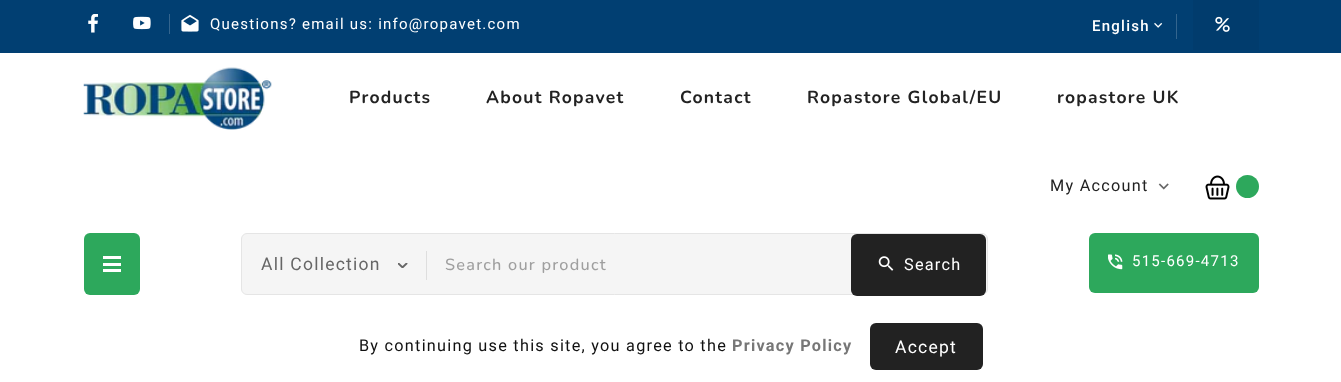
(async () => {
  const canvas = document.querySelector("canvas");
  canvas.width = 1341;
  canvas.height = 382;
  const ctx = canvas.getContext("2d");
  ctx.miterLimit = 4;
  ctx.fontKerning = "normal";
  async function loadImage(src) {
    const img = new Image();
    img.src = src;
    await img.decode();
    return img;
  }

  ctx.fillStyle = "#ffffff";
  ctx.fillRect(0, 0, 1341, 382);
  ctx.fillStyle = "#013f72";
  ctx.fillRect(0, 0, 1341, 53);
  ctx.drawImage(await loadImage("img/1.png"), 88, 14, 10, 19);
  ctx.drawImage(await loadImage("img/2.png"), 133, 16, 18, 14);
  ctx.fillStyle = "#34658e";
  ctx.fillRect(169, 14, 1, 20);
  ctx.drawImage(await loadImage("img/3.png"), 181, 14, 18, 18);
  ctx.drawImage(await loadImage("img/4.png"), 1154, 22, 9, 6);
  ctx.fillRect(1176, 14, 1, 25);
  ctx.fillStyle = "#013c6d";
  ctx.fillRect(1193, 0, 66, 50);
  ctx.drawImage(await loadImage("img/5.png"), 1215, 16, 15, 16);
  ctx.drawImage(await loadImage("img/6.png"), 83, 67, 189, 63);
  ctx.drawImage(await loadImage("img/7.png"), 1158, 183, 11, 7);
  ctx.drawImage(await loadImage("img/8.png"), 1205, 175, 25, 25);
  ctx.fillStyle = "#2da85c";
  ctx.beginPath();
  ctx.arc(1247.5, 186.5, 11.5, 0, Math.PI * 2);
  ctx.fill();
  ctx.beginPath();
  ctx.roundRect(84, 233, 56, 62, 6);
  ctx.fill();
  for (const [x, y, w, h, color] of [
    [103, 263, 18, 3, "#ffffff"],
    [103, 256, 18, 3, "#ffffff"],
    [103, 269, 18, 3, "#ffffff"],
  ]) {
    ctx.fillStyle = color;
    ctx.fillRect(x, y, w, h);
  }
  ctx.fillStyle = "#f5f5f5";
  ctx.beginPath();
  ctx.roundRect(241.5, 233.5, 746, 61, 5.5);
  ctx.fill();
  ctx.strokeStyle = "#e5e5e5";
  ctx.stroke();
  ctx.drawImage(await loadImage("img/9.png"), 398, 263, 10, 5);
  ctx.fillStyle = "#dedede";
  ctx.fillRect(426, 251, 1, 29);
  ctx.fillStyle = "#222222";
  ctx.beginPath();
  ctx.roundRect(851, 234, 135, 62, 6);
  ctx.fill();
  ctx.drawImage(await loadImage("img/10.png"), 878, 256, 16, 15);
  ctx.fillStyle = "#2da85c";
  ctx.beginPath();
  ctx.roundRect(1089, 233, 170, 60, 6);
  ctx.fill();
  ctx.drawImage(await loadImage("img/11.png"), 1108, 254, 15, 16);
  ctx.fillStyle = "#222222";
  ctx.beginPath();
  ctx.roundRect(870, 323, 113, 47, 6);
  ctx.fill();
  ctx.letterSpacing = "1.25px";
  ctx.font = "15px Roboto";
  ctx.fillStyle = "#ffffff";
  ctx.fillText("Questions? email us: info@ropavet.com", 210, 29);
  ctx.font = "500 15px Roboto";
  ctx.fillText("English", 1092, 31);
  ctx.font = "bold 17.5px Nunito";
  ctx.fillStyle = "#222222";
  for (const [text, x, y] of [
    ["Products", 349, 103],
    ["About Ropavet", 486, 103],
    ["Contact", 680, 103],
    ["Ropastore Global/EU", 807, 103],
    ["ropastore UK", 1057, 103],
  ]) {
    ctx.fillText(text, x, y);
  }
  ctx.font = "16.25px Roboto";
  ctx.fillText("My Account", 1050, 191);
  ctx.font = "17.5px Roboto";
  ctx.fillStyle = "#666666";
  ctx.fillText("All Collection", 261, 270);
  ctx.font = "500 16.25px Nunito";
  ctx.fillStyle = "#9f9f9f";
  ctx.fillText("Search our product", 445, 270);
  ctx.font = "16.25px Roboto";
  ctx.fillStyle = "#ffffff";
  ctx.fillText("Search", 904, 270);
  ctx.font = "15px Roboto";
  ctx.fillText("515-669-4713", 1132, 266);
  ctx.font = "16.25px Roboto";
  ctx.fillStyle = "#111111";
  ctx.fillText("By continuing use this site, you agree to the", 359, 351);
  ctx.font = "bold 16.25px Roboto";
  ctx.fillStyle = "#777777";
  ctx.fillText("Privacy Policy", 732, 351);
  ctx.font = "17.5px Roboto";
  ctx.fillStyle = "#ffffff";
  ctx.fillText("Accept", 895, 353);
})();
